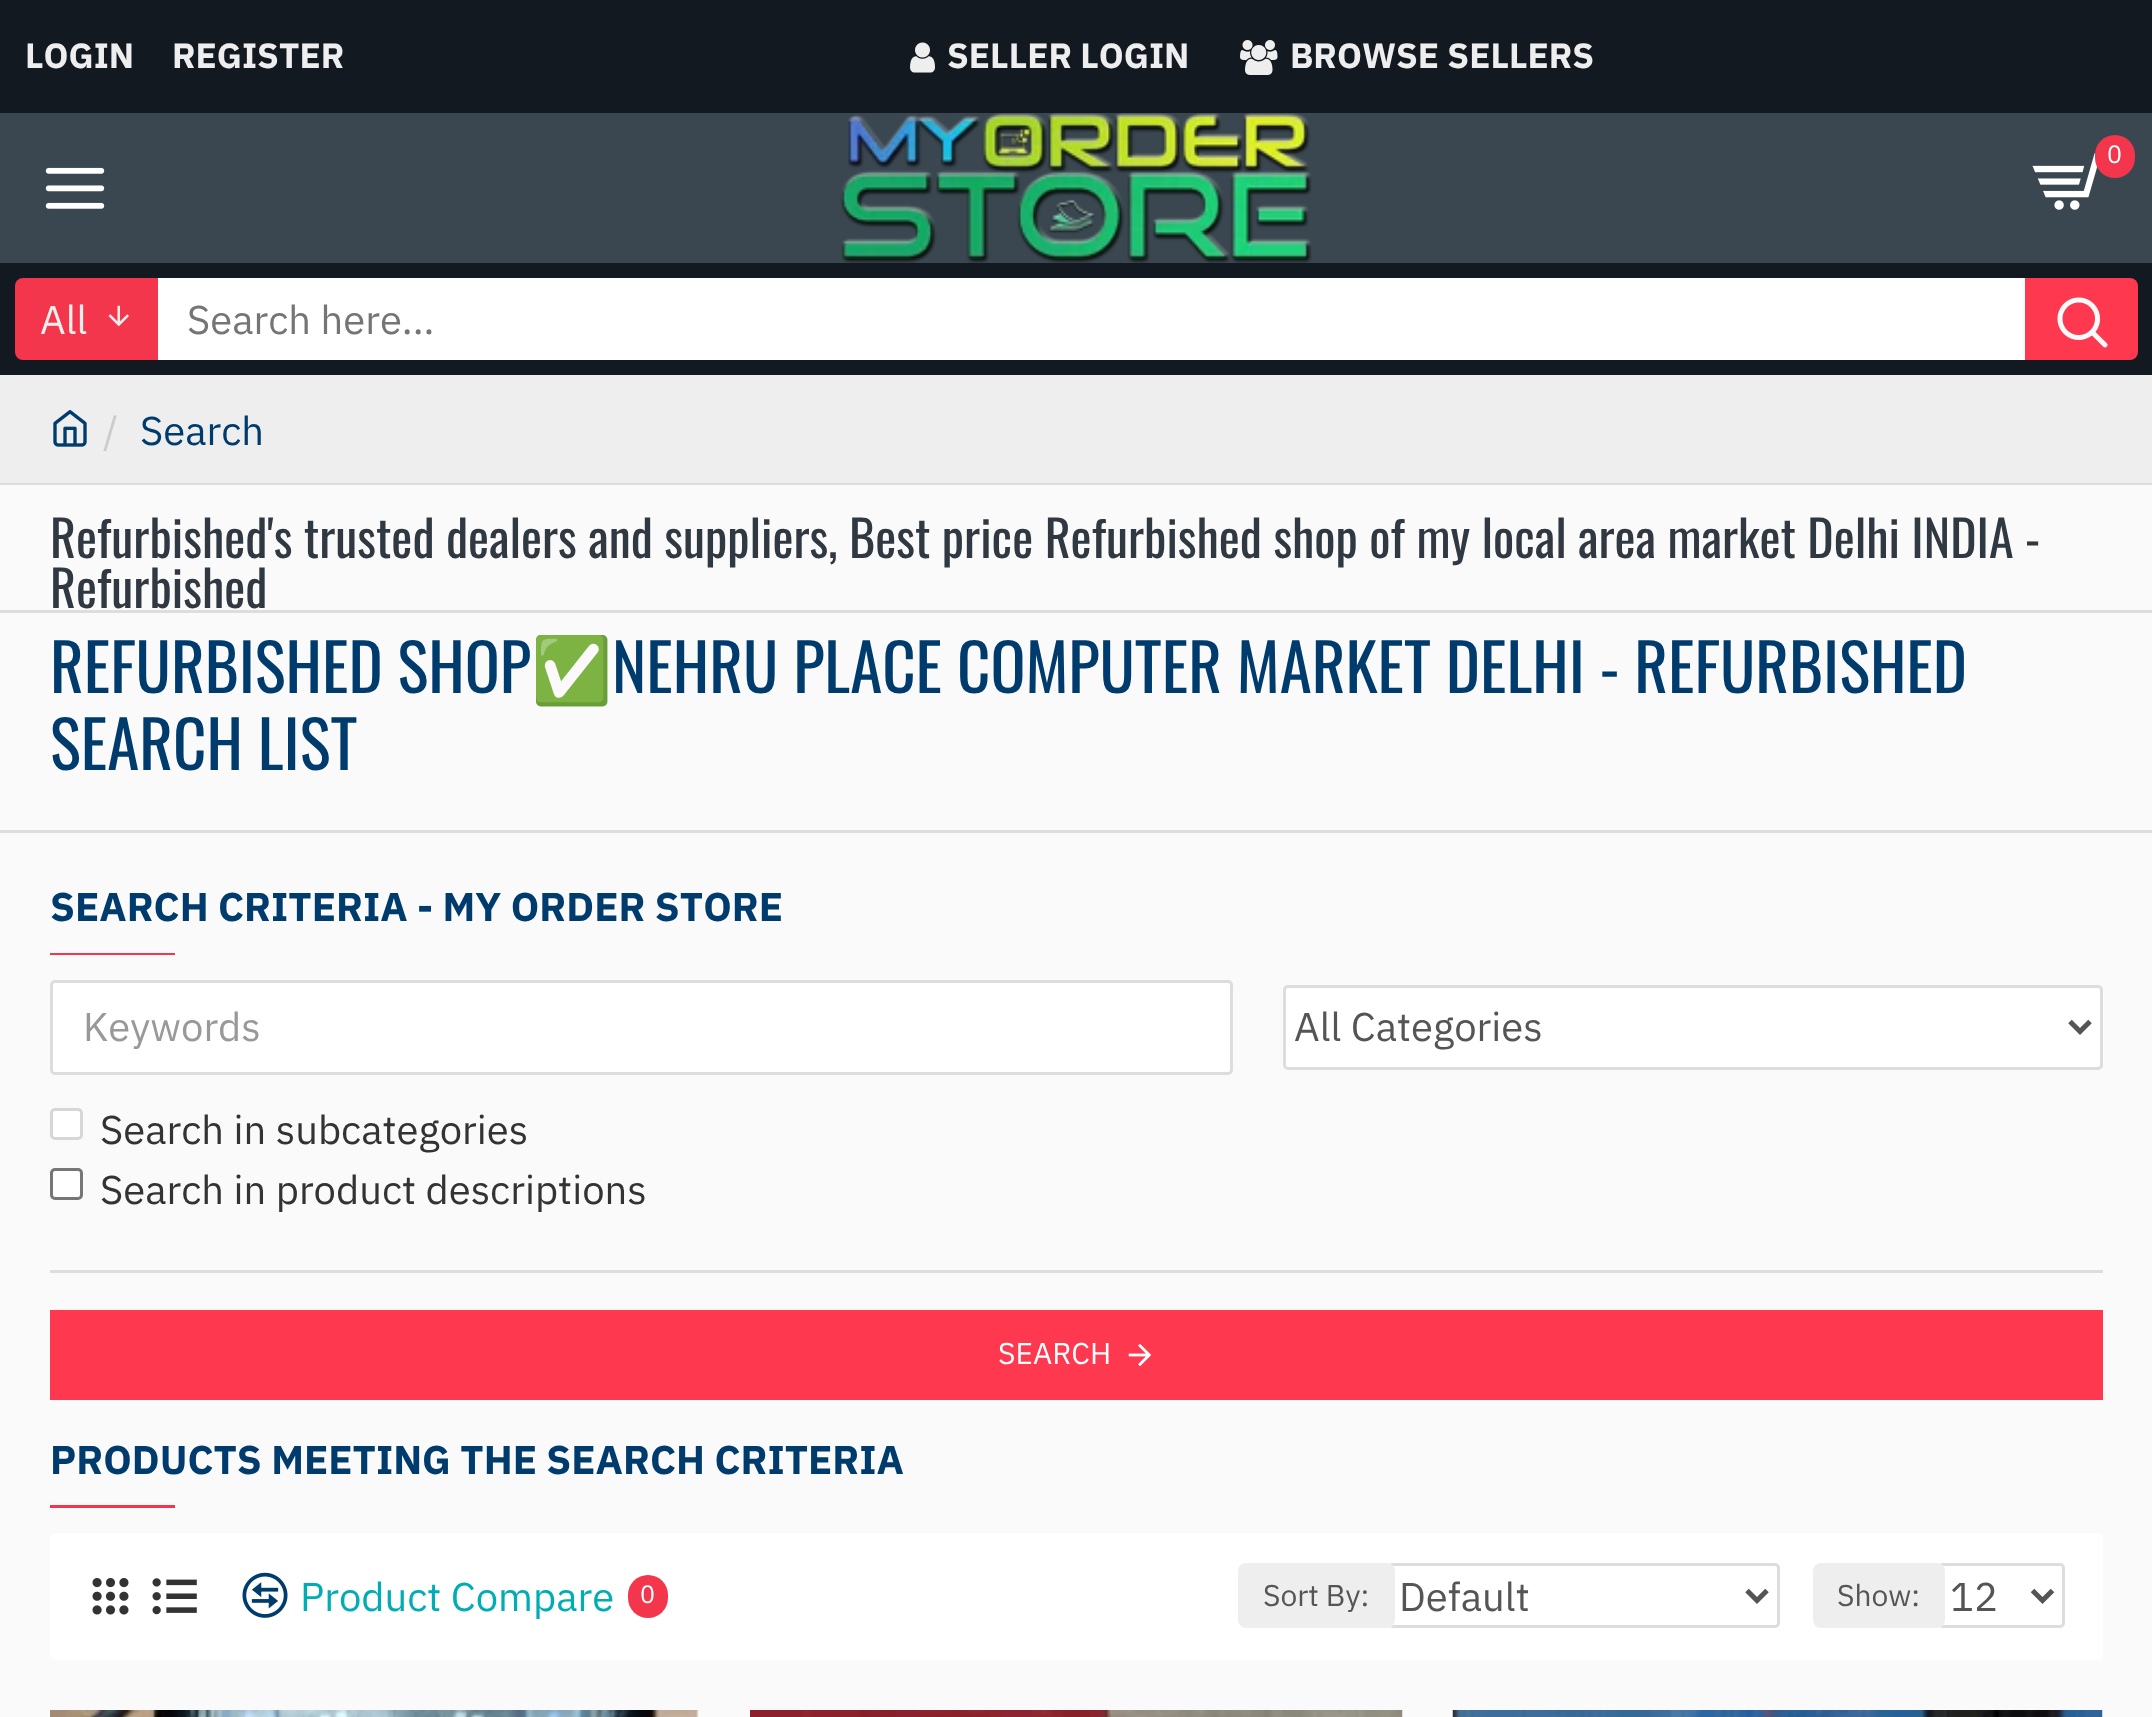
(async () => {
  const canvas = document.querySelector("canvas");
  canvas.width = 2152;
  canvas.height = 1717;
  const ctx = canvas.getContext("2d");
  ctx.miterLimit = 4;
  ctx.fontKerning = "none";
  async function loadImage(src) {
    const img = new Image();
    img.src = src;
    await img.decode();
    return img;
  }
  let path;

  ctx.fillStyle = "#fafafa";
  ctx.fillRect(0, 0, 2152, 1717);
  ctx.fillStyle = "#131921";
  ctx.fillRect(0, 0, 2152, 113);
  ctx.drawImage(await loadImage("img/1.png"), 910, 42, 25, 31);
  ctx.drawImage(await loadImage("img/2.png"), 1240, 40, 38, 35);
  ctx.fillStyle = "#3a4750";
  ctx.fillRect(0, 113, 2152, 150);
  ctx.drawImage(await loadImage("img/3.png"), 840, 113, 472, 150);
  ctx.drawImage(await loadImage("img/4.png"), 2032, 153, 66, 57);
  ctx.fillStyle = "#f3364c";
  ctx.beginPath();
  ctx.roundRect(2095, 135, 40, 43, 20);
  ctx.fill();
  ctx.drawImage(await loadImage("img/5.png"), 45, 167, 60, 42);
  ctx.fillStyle = "#131921";
  ctx.fillRect(0, 263, 2152, 112);
  ctx.fillStyle = "#f3364c";
  ctx.beginPath();
  ctx.roundRect(15, 278, 143, 82, [8, 0, 0, 8]);
  ctx.fill();
  ctx.drawImage(await loadImage("img/6.png"), 108, 305, 21, 22);
  ctx.fillStyle = "#ffffff";
  ctx.fillRect(158, 278, 1867, 82);
  ctx.fillStyle = "#fd384f";
  ctx.beginPath();
  ctx.roundRect(2025, 278, 113, 82, [0, 8, 8, 0]);
  ctx.fill();
  ctx.drawImage(await loadImage("img/7.png"), 2057, 297, 51, 51);
  ctx.fillStyle = "#eeeeee";
  ctx.fillRect(0, 375, 2152, 108);
  ctx.fillStyle = "#dddddd";
  ctx.fillRect(0, 483, 2152, 2);
  ctx.drawImage(await loadImage("img/8.png"), 53, 410, 34, 37);
  for (const [x, y, w, h, color] of [
    [0, 610, 2152, 3, "#dddddd"],
    [0, 830, 2152, 3, "#dddddd"],
    [50, 953, 125, 2, "#f3364c"],
  ]) {
    ctx.fillStyle = color;
    ctx.fillRect(x, y, w, h);
  }
  ctx.fillStyle = "#ffffff";
  ctx.beginPath();
  ctx.roundRect(51.5, 981.5, 1180, 92, 3.5);
  ctx.fill();
  ctx.strokeStyle = "#dddddd";
  ctx.lineWidth = 3;
  ctx.stroke();
  ctx.beginPath();
  ctx.roundRect(1284.5, 986.5, 817, 82, 3.5);
  ctx.fill();
  ctx.stroke();
  path = new Path2D("M2070 1021.5L2080 1031.5L2090 1021.5");
  ctx.strokeStyle = "#555555";
  ctx.lineWidth = 5;
  ctx.stroke(path);
  ctx.beginPath();
  ctx.roundRect(51.5, 1109.5, 30, 29, 3.5);
  ctx.fill();
  ctx.strokeStyle = "#d6d6d6";
  ctx.lineWidth = 3;
  ctx.stroke();
  ctx.beginPath();
  ctx.roundRect(51.5, 1169.5, 30, 29, 3.5);
  ctx.fill();
  ctx.strokeStyle = "#767676";
  ctx.stroke();
  ctx.fillStyle = "#dddddd";
  ctx.fillRect(50, 1270, 2053, 3);
  ctx.fillStyle = "#fd384f";
  ctx.fillRect(50, 1310, 2053, 90);
  ctx.drawImage(await loadImage("img/9.png"), 1128, 1343, 24, 24);
  ctx.fillStyle = "#f3364c";
  ctx.fillRect(50, 1505, 125, 3);
  ctx.fillStyle = "#ffffff";
  ctx.beginPath();
  ctx.roundRect(50, 1533, 2053, 127, 5);
  ctx.fill();
  ctx.drawImage(await loadImage("img/10.png"), 92, 1578, 37, 37);
  ctx.drawImage(await loadImage("img/11.png"), 152, 1578, 45, 37);
  ctx.drawImage(await loadImage("img/12.png"), 242, 1572, 46, 46);
  ctx.fillStyle = "#f3364c";
  ctx.beginPath();
  ctx.roundRect(628, 1575, 40, 43, 20);
  ctx.fill();
  ctx.beginPath();
  ctx.roundRect(1389.5, 1564.5, 389, 62, 3.5);
  ctx.strokeStyle = "#dddddd";
  ctx.stroke();
  ctx.fillStyle = "#eeeeee";
  ctx.beginPath();
  ctx.roundRect(1238, 1563, 157, 65, 8);
  ctx.fill();
  path = new Path2D("M1747 1590.5L1757 1600.5L1767 1590.5");
  ctx.strokeStyle = "#555555";
  ctx.lineWidth = 5;
  ctx.stroke(path);
  ctx.beginPath();
  ctx.roundRect(1939.5, 1564.5, 124, 62, 3.5);
  ctx.strokeStyle = "#dddddd";
  ctx.lineWidth = 3;
  ctx.stroke();
  ctx.beginPath();
  ctx.roundRect(1813, 1563, 132, 65, 8);
  ctx.fill();
  path = new Path2D("M2032.5 1590.5L2042.5 1600.5L2052.5 1590.5");
  ctx.strokeStyle = "#555555";
  ctx.lineWidth = 5;
  ctx.stroke(path);
  ctx.drawImage(await loadImage("img/13.png"), 50, 1710, 650, 7);
  ctx.drawImage(await loadImage("img/14.png"), 750, 1710, 653, 7);
  ctx.drawImage(await loadImage("img/15.png"), 1452, 1710, 651, 7);
  ctx.font = "bold 35px IBM Plex Sans";
  for (const [text, x, y] of [
    ["LOGIN", 25, 68],
    ["REGISTER", 172, 68],
    ["SELLER LOGIN", 947, 68],
    ["BROWSE SELLERS", 1290, 68],
  ]) {
    ctx.fillText(text, x, y);
  }
  ctx.font = "25px IBM Plex Sans";
  ctx.fillStyle = "#ffffff";
  ctx.fillText("0", 2107, 163);
  ctx.font = "40px IBM Plex Sans";
  ctx.fillStyle = "#eeeeee";
  ctx.fillText("All", 40, 334);
  ctx.fillStyle = "#757575";
  ctx.fillText("Search here...", 187, 334);
  ctx.fillStyle = "#cccccc";
  ctx.fillText("/", 103, 445);
  ctx.fillStyle = "#003b6d";
  ctx.fillText("Search", 140, 445);
  ctx.font = "50px Oswald";
  ctx.fillStyle = "#303841";
  ctx.fillText("Refurbished's trusted dealers and suppliers, Best price Refurbished shop of my local area market Delhi INDIA -", 50, 558);
  ctx.fillText("Refurbished", 50, 608);
  ctx.font = "65px Oswald";
  ctx.fillStyle = "#003b6d";
  ctx.fillText("REFURBISHED SHOP", 50, 693);
  ctx.font = "65px Noto Color Emoji";
  ctx.fillText("✅", 531, 693);
  ctx.font = "65px Oswald";
  ctx.fillText("NEHRU PLACE COMPUTER MARKET DELHI - REFURBISHED", 612, 693);
  ctx.fillText("SEARCH LIST", 50, 770);
  ctx.font = "bold 40px IBM Plex Sans";
  ctx.fillText("SEARCH CRITERIA - MY ORDER STORE", 50, 921);
  ctx.font = "40px IBM Plex Sans";
  ctx.fillStyle = "#999999";
  ctx.fillText("Keywords", 83, 1041);
  ctx.fillStyle = "#555555";
  ctx.fillText("All Categories", 1294, 1041);
  ctx.fillStyle = "#333333";
  ctx.fillText("Search in subcategories", 100, 1144);
  ctx.fillText("Search in product descriptions", 100, 1204);
  ctx.font = "30px IBM Plex Sans";
  ctx.fillStyle = "#ffffff";
  ctx.fillText("SEARCH", 998, 1364);
  ctx.font = "bold 40px IBM Plex Sans";
  ctx.fillStyle = "#003b6d";
  ctx.fillText("PRODUCTS MEETING THE SEARCH CRITERIA", 50, 1474);
  ctx.font = "40px IBM Plex Sans";
  ctx.fillStyle = "#01adb5";
  ctx.fillText("Product Compare", 300, 1611);
  ctx.font = "25px IBM Plex Sans";
  ctx.fillStyle = "#ffffff";
  ctx.fillText("0", 640, 1603);
  ctx.font = "30px IBM Plex Sans";
  ctx.fillStyle = "#555555";
  ctx.fillText("Sort By:", 1263, 1606);
  ctx.font = "40px IBM Plex Sans";
  ctx.fillText("Default", 1399, 1611);
  ctx.font = "30px IBM Plex Sans";
  ctx.fillText("Show:", 1837, 1606);
  ctx.font = "40px IBM Plex Sans";
  ctx.fillText("12", 1950, 1611);
})();
